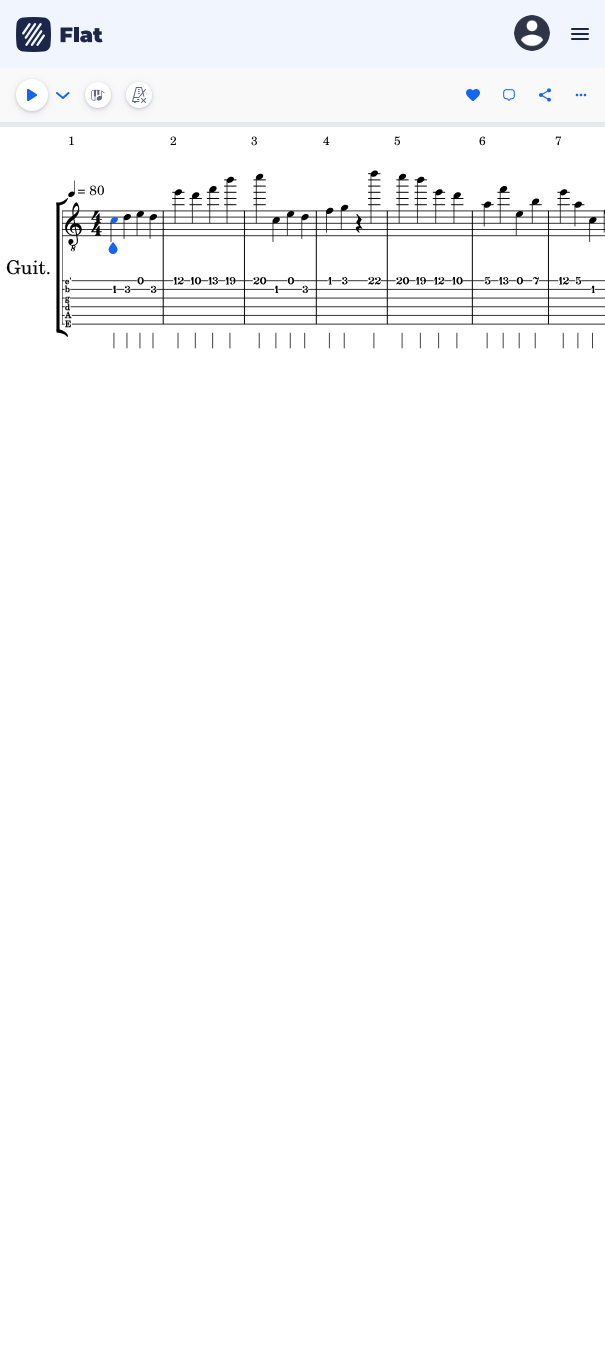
(async () => {
  const canvas = document.querySelector("canvas");
  canvas.width = 605;
  canvas.height = 1358;
  const ctx = canvas.getContext("2d");
  ctx.miterLimit = 4;
  ctx.fontKerning = "normal";
  async function loadImage(src) {
    const img = new Image();
    img.src = src;
    await img.decode();
    return img;
  }
  let gradient, path;

  ctx.fillStyle = "#ffffff";
  ctx.fillRect(0, 0, 605, 1358);
  ctx.fillStyle = "#f1f6fe";
  ctx.fillRect(0, 0, 605, 68);
  ctx.drawImage(await loadImage("img/1.png"), 16, 17, 87, 35);
  ctx.fillStyle = "#ffffff";
  ctx.beginPath();
  ctx.arc(532, 33, 18, 0, Math.PI * 2);
  ctx.fill();
  ctx.drawImage(await loadImage("img/2.png"), 514, 15, 36, 36);
  ctx.fillStyle = "#1c264a";
  ctx.beginPath();
  ctx.roundRect(571, 28, 18, 2, 1);
  ctx.fill();
  ctx.beginPath();
  ctx.roundRect(571, 33, 18, 2, 1);
  ctx.fill();
  ctx.beginPath();
  ctx.roundRect(571, 38, 18, 2, 1);
  ctx.fill();
  ctx.fillStyle = "#f9f9fa";
  ctx.fillRect(0, 68, 605, 54);
  ctx.fillStyle = "rgba(40, 48, 79, 0.2)";
  ctx.filter = "blur(1.5px)";
  ctx.beginPath();
  ctx.roundRect(16, 80, 32, 32, 16);
  ctx.fill();
  ctx.filter = "none";
  ctx.fillStyle = "rgba(40, 48, 79, 0.1)";
  ctx.filter = "blur(4px)";
  ctx.beginPath();
  ctx.roundRect(16, 81, 32, 32, 16);
  ctx.fill();
  ctx.filter = "none";
  ctx.fillStyle = "#ffffff";
  ctx.beginPath();
  ctx.arc(32, 95, 16, 0, Math.PI * 2);
  ctx.fill();
  ctx.drawImage(await loadImage("img/3.png"), 27, 88, 11, 14);
  path = new Path2D("M57 93L63 98L68.5 93");
  ctx.strokeStyle = "#1565ef";
  ctx.lineWidth = 2;
  ctx.lineCap = "round";
  ctx.lineJoin = "round";
  ctx.stroke(path);
  ctx.fillStyle = "rgba(40, 48, 79, 0.2)";
  ctx.filter = "blur(1.5px)";
  ctx.beginPath();
  ctx.roundRect(85, 83, 26, 26, 13);
  ctx.fill();
  ctx.filter = "none";
  ctx.fillStyle = "rgba(40, 48, 79, 0.1)";
  ctx.filter = "blur(4px)";
  ctx.beginPath();
  ctx.roundRect(85, 84, 26, 26, 13);
  ctx.fill();
  ctx.filter = "none";
  ctx.fillStyle = "#ffffff";
  ctx.beginPath();
  ctx.arc(98, 95, 13, 0, Math.PI * 2);
  ctx.fill();
  ctx.drawImage(await loadImage("img/4.png"), 91, 89, 14, 12);
  ctx.fillStyle = "rgba(40, 48, 79, 0.2)";
  ctx.filter = "blur(1.5px)";
  ctx.beginPath();
  ctx.roundRect(126, 83, 26, 26, 13);
  ctx.fill();
  ctx.filter = "none";
  ctx.fillStyle = "rgba(40, 48, 79, 0.1)";
  ctx.filter = "blur(4px)";
  ctx.beginPath();
  ctx.roundRect(126, 84, 26, 26, 13);
  ctx.fill();
  ctx.filter = "none";
  ctx.fillStyle = "#ffffff";
  ctx.beginPath();
  ctx.arc(139, 95, 13, 0, Math.PI * 2);
  ctx.fill();
  ctx.drawImage(await loadImage("img/5.png"), 132, 87, 14, 16);
  ctx.drawImage(await loadImage("img/6.png"), 466, 89, 14, 12);
  ctx.drawImage(await loadImage("img/7.png"), 503, 89, 12, 12);
  ctx.drawImage(await loadImage("img/8.png"), 539, 88, 12, 14);
  ctx.drawImage(await loadImage("img/9.png"), 575, 93, 12, 4);
  ctx.fillStyle = "#e7e8ec";
  ctx.fillRect(0, 122, 605, 5);
  gradient = ctx.createLinearGradient(62, 758, 605, 758);
  gradient.addColorStop(0, "#ffffff");
  gradient.addColorStop(0.02, "#ffffff");
  gradient.addColorStop(0.04, "rgba(255, 255, 255, 0.5)");
  ctx.fillStyle = gradient;
  ctx.fillRect(62, 198, 6, 139);
  ctx.drawImage(await loadImage("img/10.png"), 62, 170, 543, 179);
  ctx.fillStyle = "#000000";
  path = new Path2D("M56.5 205.5C56.5 202.5 55 202.5 57.5 202.5C59.5 202.5 61.5 202 63.5 201L67 198.5C67 198.5 68 197.5 68 198.5L66.5 201.5C65.5 203 64 204 62.5 204.5C60 205.5 58.5 205.5 56.5 205.5Z");
  ctx.fill(path);
  path = new Path2D("M56.5 332.5V329.5H59.5C62.5 330 68 332.5 68 336.5C68 337 67.5 337 67 336.5L64.5 334.5L60.5 333Z");
  ctx.fill(path);
  path = new Path2D("M58 204.5V330.5");
  ctx.strokeStyle = "#000000";
  ctx.lineWidth = 3.1;
  ctx.lineCap = "butt";
  ctx.lineJoin = "miter";
  ctx.stroke(path);
  ctx.font = "12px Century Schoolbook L";
  for (const [text, x, y] of [
    ["1", 68, 145],
    ["2", 170, 145],
    ["3", 251, 145],
    ["4", 323, 145],
    ["5", 394, 145],
    ["6", 479, 145],
    ["7", 555, 145],
  ]) {
    ctx.fillText(text, x, y);
  }
  ctx.font = "19px Century Schoolbook L";
  ctx.fillText("Guit.", 6, 274);
})();
